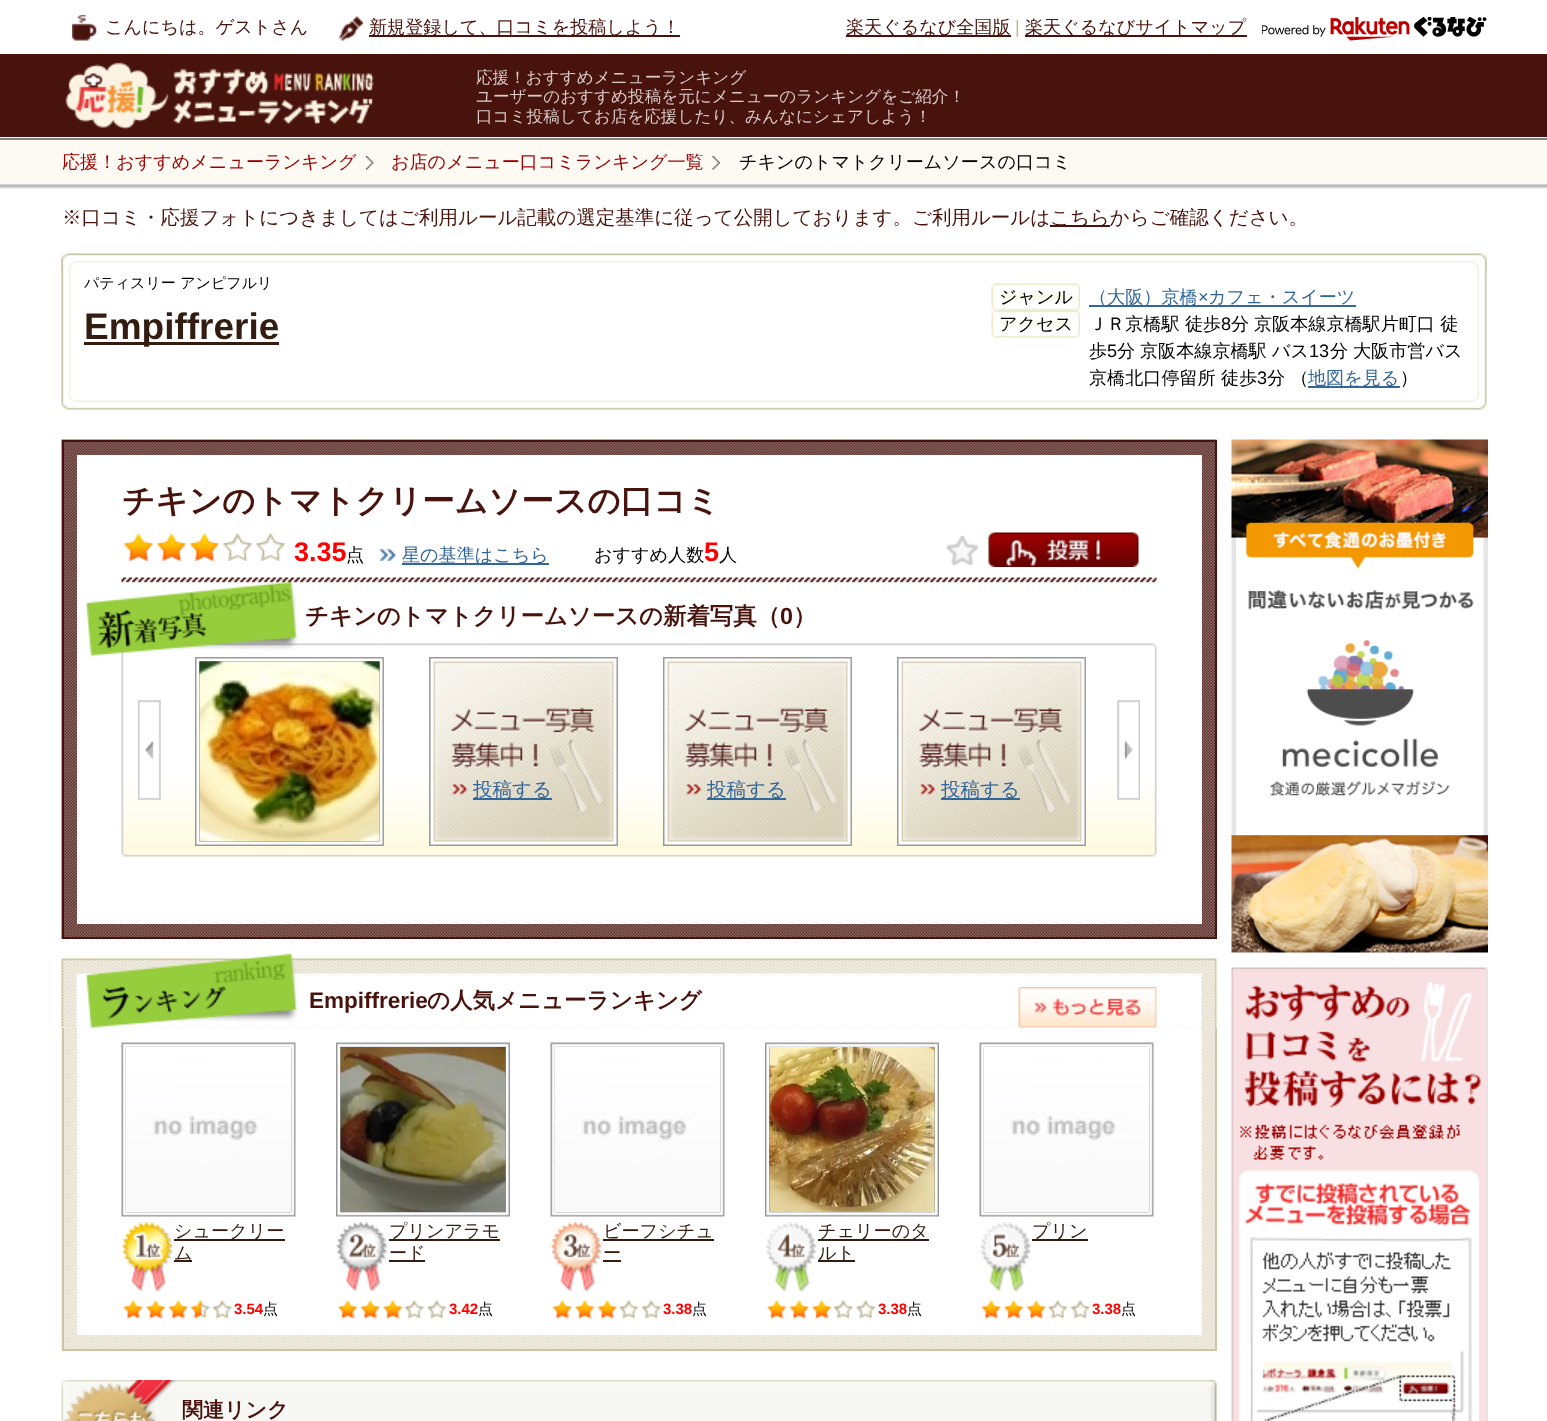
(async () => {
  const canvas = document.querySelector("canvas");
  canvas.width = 1547;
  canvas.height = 1421;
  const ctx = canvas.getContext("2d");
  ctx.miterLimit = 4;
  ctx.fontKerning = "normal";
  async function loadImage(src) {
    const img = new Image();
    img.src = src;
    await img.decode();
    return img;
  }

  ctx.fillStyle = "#ffffff";
  ctx.fillRect(0, 0, 1547, 1421);
  ctx.drawImage(await loadImage("img/1.png"), 72, 15, 26, 26);
  ctx.drawImage(await loadImage("img/2.png"), 339, 16, 24, 25);
  for (const [x, y, w, h, color] of [
    [369, 35, 311, 2, "#49130d"],
    [846, 35, 165, 2, "#49130d"],
    [1025, 35, 222, 2, "#49130d"],
  ]) {
    ctx.fillStyle = color;
    ctx.fillRect(x, y, w, h);
  }
  ctx.drawImage(await loadImage("img/3.png"), 1262, 17, 225, 24);
  ctx.fillRect(0, 54, 1547, 83);
  ctx.drawImage(await loadImage("img/4.png"), 65, 62, 309, 68);
  ctx.fillStyle = "#fdfaf4";
  ctx.fillRect(0, 140, 1547, 45);
  ctx.drawImage(await loadImage("img/5.png"), 0, 184, 1547, 5);
  ctx.fillStyle = "#808080";
  ctx.fillRect(0, 138, 1547, 2);
  ctx.drawImage(await loadImage("img/6.png"), 366, 156, 8, 14);
  ctx.drawImage(await loadImage("img/7.png"), 712, 156, 8, 14);
  ctx.fillStyle = "#49130d";
  ctx.fillRect(1050, 225, 60, 2);
  ctx.drawImage(await loadImage("img/8.png"), 61, 253, 1426, 157);
  ctx.drawImage(await loadImage("img/9.png"), 61, 253, 1426, 20);
  ctx.fillStyle = "#331d10";
  ctx.fillRect(84, 342, 195, 3);
  ctx.drawImage(await loadImage("img/10.png"), 991, 283, 89, 28);
  ctx.fillStyle = "#336699";
  ctx.fillRect(1089, 305, 267, 2);
  ctx.drawImage(await loadImage("img/11.png"), 991, 310, 89, 28);
  ctx.fillRect(1308, 386, 92, 2);
  ctx.drawImage(await loadImage("img/12.png"), 61, 439, 1156, 500);
  ctx.strokeStyle = "#49130d";
  ctx.lineWidth = 2;
  ctx.strokeRect(63, 441, 1153, 497);
  ctx.fillStyle = "#ffffff";
  ctx.fillRect(77, 455, 1125, 469);
  ctx.drawImage(await loadImage("img/13.png"), 123, 532, 31, 29);
  ctx.drawImage(await loadImage("img/13.png"), 156, 532, 31, 29);
  ctx.drawImage(await loadImage("img/13.png"), 189, 532, 31, 29);
  ctx.drawImage(await loadImage("img/14.png"), 222, 532, 31, 29);
  ctx.drawImage(await loadImage("img/14.png"), 255, 532, 31, 29);
  ctx.drawImage(await loadImage("img/15.png"), 379, 549, 17, 12);
  ctx.fillStyle = "#336699";
  ctx.fillRect(402, 563, 147, 2);
  ctx.drawImage(await loadImage("img/16.png"), 946, 535, 32, 31);
  ctx.drawImage(await loadImage("img/17.png"), 988, 532, 151, 35);
  ctx.drawImage(await loadImage("img/18.png"), 85, 577, 1072, 280);
  ctx.drawImage(await loadImage("img/19.png"), 138, 700, 23, 100);
  ctx.drawImage(await loadImage("img/20.png"), 138, 700, 23, 100);
  ctx.drawImage(await loadImage("img/21.png"), 195, 657, 189, 189);
  ctx.drawImage(await loadImage("img/22.png"), 199, 661, 181, 181);
  ctx.drawImage(await loadImage("img/23.png"), 429, 657, 189, 189);
  ctx.fillRect(473, 798, 79, 2);
  ctx.drawImage(await loadImage("img/24.png"), 663, 657, 189, 189);
  ctx.fillRect(707, 798, 79, 2);
  ctx.drawImage(await loadImage("img/24.png"), 897, 657, 189, 189);
  ctx.fillRect(941, 798, 79, 2);
  ctx.drawImage(await loadImage("img/25.png"), 1117, 700, 23, 100);
  ctx.drawImage(await loadImage("img/26.png"), 1117, 700, 23, 100);
  ctx.drawImage(await loadImage("img/29.png"), 61, 1027, 1156, 323);
  ctx.drawImage(await loadImage("img/27.png"), 61, 954, 1156, 74);
  ctx.drawImage(await loadImage("img/28.png"), 1018, 987, 139, 41);
  for (const [x, y, w, h, color] of [
    [1215, 1028, 2, 322, "#cec3a4"],
    [62, 1349, 1155, 2, "#cec3a4"],
    [62, 1028, 2, 322, "#cec3a4"],
    [77, 1028, 1125, 307, "#ffffff"],
  ]) {
    ctx.fillStyle = color;
    ctx.fillRect(x, y, w, h);
  }
  ctx.drawImage(await loadImage("img/30.png"), 121, 1042, 175, 175);
  ctx.drawImage(await loadImage("img/31.png"), 126, 1047, 165, 165);
  ctx.drawImage(await loadImage("img/32.png"), 121, 1221, 53, 71);
  ctx.fillStyle = "#331d10";
  ctx.fillRect(174, 1239, 111, 2);
  ctx.fillRect(174, 1260, 18, 2);
  ctx.drawImage(await loadImage("img/33.png"), 122, 1300, 21, 19);
  ctx.drawImage(await loadImage("img/34.png"), 145, 1300, 21, 19);
  ctx.drawImage(await loadImage("img/33.png"), 167, 1300, 21, 19);
  ctx.drawImage(await loadImage("img/35.png"), 190, 1300, 21, 19);
  ctx.drawImage(await loadImage("img/36.png"), 212, 1300, 21, 19);
  ctx.drawImage(await loadImage("img/37.png"), 336, 1042, 174, 175);
  ctx.drawImage(await loadImage("img/38.png"), 340, 1047, 166, 165);
  ctx.drawImage(await loadImage("img/39.png"), 336, 1221, 53, 71);
  ctx.fillRect(389, 1239, 111, 2);
  ctx.fillRect(389, 1260, 36, 2);
  ctx.drawImage(await loadImage("img/40.png"), 337, 1300, 21, 19);
  ctx.drawImage(await loadImage("img/41.png"), 359, 1300, 21, 19);
  ctx.drawImage(await loadImage("img/40.png"), 382, 1300, 21, 19);
  ctx.drawImage(await loadImage("img/42.png"), 404, 1300, 21, 19);
  ctx.drawImage(await loadImage("img/43.png"), 427, 1300, 20, 19);
  ctx.drawImage(await loadImage("img/44.png"), 550, 1042, 175, 175);
  ctx.drawImage(await loadImage("img/45.png"), 555, 1047, 165, 165);
  ctx.drawImage(await loadImage("img/46.png"), 550, 1221, 53, 71);
  ctx.fillRect(603, 1239, 111, 2);
  ctx.fillRect(603, 1260, 18, 2);
  ctx.drawImage(await loadImage("img/41.png"), 551, 1300, 21, 19);
  ctx.drawImage(await loadImage("img/40.png"), 574, 1300, 21, 19);
  ctx.drawImage(await loadImage("img/41.png"), 596, 1300, 21, 19);
  ctx.drawImage(await loadImage("img/47.png"), 619, 1300, 20, 19);
  ctx.drawImage(await loadImage("img/42.png"), 641, 1300, 21, 19);
  ctx.drawImage(await loadImage("img/48.png"), 765, 1042, 174, 175);
  ctx.drawImage(await loadImage("img/49.png"), 769, 1047, 166, 165);
  ctx.drawImage(await loadImage("img/50.png"), 765, 1221, 53, 71);
  ctx.fillRect(818, 1239, 111, 2);
  ctx.fillRect(818, 1260, 37, 2);
  ctx.drawImage(await loadImage("img/34.png"), 766, 1300, 21, 19);
  ctx.drawImage(await loadImage("img/33.png"), 788, 1300, 21, 19);
  ctx.drawImage(await loadImage("img/34.png"), 811, 1300, 21, 19);
  ctx.drawImage(await loadImage("img/36.png"), 833, 1300, 21, 19);
  ctx.drawImage(await loadImage("img/47.png"), 856, 1300, 20, 19);
  ctx.drawImage(await loadImage("img/30.png"), 979, 1042, 175, 175);
  ctx.drawImage(await loadImage("img/45.png"), 984, 1047, 165, 165);
  ctx.drawImage(await loadImage("img/51.png"), 979, 1221, 53, 71);
  ctx.fillRect(1032, 1239, 56, 2);
  ctx.drawImage(await loadImage("img/33.png"), 980, 1300, 21, 19);
  ctx.drawImage(await loadImage("img/34.png"), 1003, 1300, 21, 19);
  ctx.drawImage(await loadImage("img/52.png"), 1025, 1300, 21, 19);
  ctx.drawImage(await loadImage("img/43.png"), 1048, 1300, 20, 19);
  ctx.drawImage(await loadImage("img/36.png"), 1070, 1300, 21, 19);
  ctx.drawImage(await loadImage("img/53.png"), 61, 1380, 1156, 41);
  ctx.drawImage(await loadImage("img/54.png"), 1231, 439, 257, 514);
  ctx.drawImage(await loadImage("img/55.png"), 1231, 967, 257, 454);
  ctx.font = "500 18.1px WenQuanYi Zen Hei";
  ctx.fillStyle = "#49130d";
  for (const [text, x, y] of [
    ["こんにちは。ゲストさん", 105, 33],
    ["新規登録して、口コミを投稿しよう！", 369, 33],
    ["楽天ぐるなび全国版", 846, 33],
  ]) {
    ctx.fillText(text, x, y);
  }
  ctx.font = "18.1px Liberation Sans";
  ctx.fillStyle = "#bfb98e";
  ctx.fillText("|", 1015, 33);
  ctx.font = "500 18.1px WenQuanYi Zen Hei";
  ctx.fillStyle = "#49130d";
  ctx.fillText("楽天ぐるなびサイトマップ", 1025, 33);
  ctx.font = "500 16.6px WenQuanYi Zen Hei";
  ctx.fillStyle = "#dacbc9";
  for (const [text, x, y] of [
    ["応援！おすすめメニューランキング", 476, 83],
    ["ユーザーのおすすめ投稿を元にメニューのランキングをご紹介！", 476, 102],
    ["口コミ投稿してお店を応援したり、みんなにシェアしよう！", 476, 122],
  ]) {
    ctx.fillText(text, x, y);
  }
  ctx.font = "500 18.1px WenQuanYi Zen Hei";
  ctx.fillStyle = "#990000";
  ctx.fillText("応援！おすすめメニューランキング", 62, 168);
  ctx.fillText("お店のメニュー口コミランキング一覧", 391, 168);
  ctx.fillStyle = "#000000";
  ctx.fillText("チキンのトマトクリームソースの口コミ", 739, 168);
  ctx.font = "500 19.5px WenQuanYi Zen Hei";
  ctx.fillStyle = "#49130d";
  ctx.fillText("※口コミ・応援フォトにつきましてはご利用ルール記載の選定基準に従って公開しております。ご利用ルールは", 62, 224);
  ctx.fillText("こちらからご確認ください。", 1050, 224);
  ctx.font = "500 15px WenQuanYi Zen Hei";
  ctx.fillStyle = "#000000";
  ctx.fillText("パティスリー アンピフルリ", 84, 288);
  ctx.font = "bold 37px Liberation Sans";
  ctx.fillStyle = "#331d10";
  ctx.fillText("Empiffrerie", 84, 339);
  ctx.font = "500 18.1px WenQuanYi Zen Hei";
  ctx.fillStyle = "#000000";
  ctx.fillText("ジャンル", 999, 303);
  ctx.fillStyle = "#336699";
  ctx.fillText("（大阪）京橋", 1089, 303);
  ctx.font = "18.1px Liberation Sans";
  ctx.fillText("×", 1198, 303);
  ctx.font = "500 18.1px WenQuanYi Zen Hei";
  ctx.fillText("カフェ・スイーツ", 1208, 303);
  ctx.fillStyle = "#000000";
  ctx.fillText("アクセス", 999, 330);
  ctx.fillText("ＪＲ京橋駅 徒歩", 1089, 330);
  ctx.font = "18.1px Liberation Sans";
  ctx.fillText("8", 1221, 330);
  ctx.font = "500 18.1px WenQuanYi Zen Hei";
  for (const [text, x, y] of [
    ["分", 1231, 330],
    ["京阪本線京橋駅片町口 徒", 1254, 330],
    ["歩", 1089, 357],
  ]) {
    ctx.fillText(text, x, y);
  }
  ctx.font = "18.1px Liberation Sans";
  ctx.fillText("5", 1107, 357);
  ctx.font = "500 18.1px WenQuanYi Zen Hei";
  ctx.fillText("分", 1117, 357);
  ctx.fillText("京阪本線京橋駅 バス", 1140, 357);
  ctx.font = "18.1px Liberation Sans";
  ctx.fillText("13", 1309, 357);
  ctx.font = "500 18.1px WenQuanYi Zen Hei";
  for (const [text, x, y] of [
    ["分", 1330, 357],
    ["大阪市営バス", 1353, 357],
    ["京橋北口停留所 徒歩", 1089, 384],
  ]) {
    ctx.fillText(text, x, y);
  }
  ctx.font = "18.1px Liberation Sans";
  ctx.fillText("3", 1257, 384);
  ctx.font = "500 18.1px WenQuanYi Zen Hei";
  ctx.fillText("分 （", 1267, 384);
  ctx.fillStyle = "#336699";
  ctx.fillText("地図を見る", 1308, 384);
  ctx.fillStyle = "#000000";
  ctx.fillText("）", 1400, 384);
  ctx.font = "bold 32.6px WenQuanYi Zen Hei";
  ctx.fillStyle = "#49130d";
  ctx.fillText("チキンのトマトクリームソースの口コミ", 122, 512);
  ctx.font = "bold 27px Liberation Sans";
  ctx.fillStyle = "#ff0000";
  ctx.fillText("3.35", 294, 561);
  ctx.font = "500 18.1px WenQuanYi Zen Hei";
  ctx.fillStyle = "#000000";
  ctx.fillText("点", 346, 561);
  ctx.fillStyle = "#336699";
  ctx.fillText("星の基準はこちら", 402, 561);
  ctx.fillStyle = "#000000";
  ctx.fillText("おすすめ人数", 594, 561);
  ctx.font = "bold 27px Liberation Sans";
  ctx.fillStyle = "#ff0000";
  ctx.fillText("5", 704, 561);
  ctx.font = "500 18.1px WenQuanYi Zen Hei";
  ctx.fillStyle = "#000000";
  ctx.fillText("人", 719, 561);
  ctx.font = "bold 23.4px WenQuanYi Zen Hei";
  ctx.fillStyle = "#49130d";
  ctx.fillText("チキンのトマトクリームソースの新着写真（", 305, 624);
  ctx.font = "bold 23.4px Liberation Sans";
  ctx.fillText("0", 780, 624);
  ctx.font = "bold 23.4px WenQuanYi Zen Hei";
  ctx.fillText("）", 793, 624);
  ctx.save();
  ctx.beginPath();
  ctx.rect(473, 777, 79, 27);
  ctx.clip();
  ctx.font = "500 19.5px WenQuanYi Zen Hei";
  ctx.fillStyle = "#336699";
  ctx.fillText("投稿する", 473, 796);
  ctx.restore();
  ctx.save();
  ctx.beginPath();
  ctx.rect(707, 777, 79, 27);
  ctx.clip();
  ctx.font = "500 19.5px WenQuanYi Zen Hei";
  ctx.fillStyle = "#336699";
  ctx.fillText("投稿する", 707, 796);
  ctx.restore();
  ctx.save();
  ctx.beginPath();
  ctx.rect(941, 777, 79, 27);
  ctx.clip();
  ctx.font = "500 19.5px WenQuanYi Zen Hei";
  ctx.fillStyle = "#336699";
  ctx.fillText("投稿する", 941, 796);
  ctx.restore();
  ctx.font = "bold 22.5px Liberation Sans";
  ctx.fillText("Empiffrerie", 309, 1008);
  ctx.font = "bold 22.5px WenQuanYi Zen Hei";
  ctx.fillText("の人気メニューランキング", 427, 1008);
  ctx.font = "500 18.1px WenQuanYi Zen Hei";
  ctx.fillStyle = "#331d10";
  ctx.fillText("シュークリー", 174, 1237);
  ctx.fillText("ム", 174, 1259);
  ctx.font = "bold 15px Liberation Sans";
  ctx.fillStyle = "#ff0000";
  ctx.fillText("3.54", 234, 1314);
  ctx.font = "500 15px WenQuanYi Zen Hei";
  ctx.fillStyle = "#000000";
  ctx.fillText("点", 263, 1314);
  ctx.font = "500 18.1px WenQuanYi Zen Hei";
  ctx.fillStyle = "#331d10";
  ctx.fillText("プリンアラモ", 389, 1237);
  ctx.fillText("ード", 389, 1259);
  ctx.font = "bold 15px Liberation Sans";
  ctx.fillStyle = "#ff0000";
  ctx.fillText("3.42", 449, 1314);
  ctx.font = "500 15px WenQuanYi Zen Hei";
  ctx.fillStyle = "#000000";
  ctx.fillText("点", 478, 1314);
  ctx.font = "500 18.1px WenQuanYi Zen Hei";
  ctx.fillStyle = "#331d10";
  ctx.fillText("ビーフシチュ", 603, 1237);
  ctx.fillText("ー", 603, 1259);
  ctx.font = "bold 15px Liberation Sans";
  ctx.fillStyle = "#ff0000";
  ctx.fillText("3.38", 663, 1314);
  ctx.font = "500 15px WenQuanYi Zen Hei";
  ctx.fillStyle = "#000000";
  ctx.fillText("点", 692, 1314);
  ctx.font = "500 18.1px WenQuanYi Zen Hei";
  ctx.fillStyle = "#331d10";
  ctx.fillText("チェリーのタ", 818, 1237);
  ctx.fillText("ルト", 818, 1259);
  ctx.font = "bold 15px Liberation Sans";
  ctx.fillStyle = "#ff0000";
  ctx.fillText("3.38", 878, 1314);
  ctx.font = "500 15px WenQuanYi Zen Hei";
  ctx.fillStyle = "#000000";
  ctx.fillText("点", 907, 1314);
  ctx.font = "500 18.1px WenQuanYi Zen Hei";
  ctx.fillStyle = "#331d10";
  ctx.fillText("プリン", 1032, 1237);
  ctx.font = "bold 15px Liberation Sans";
  ctx.fillStyle = "#ff0000";
  ctx.fillText("3.38", 1092, 1314);
  ctx.font = "500 15px WenQuanYi Zen Hei";
  ctx.fillStyle = "#000000";
  ctx.fillText("点", 1121, 1314);
  ctx.font = "bold 21px WenQuanYi Zen Hei";
  ctx.fillStyle = "#49130d";
  ctx.fillText("関連リンク", 182, 1417);
})();
